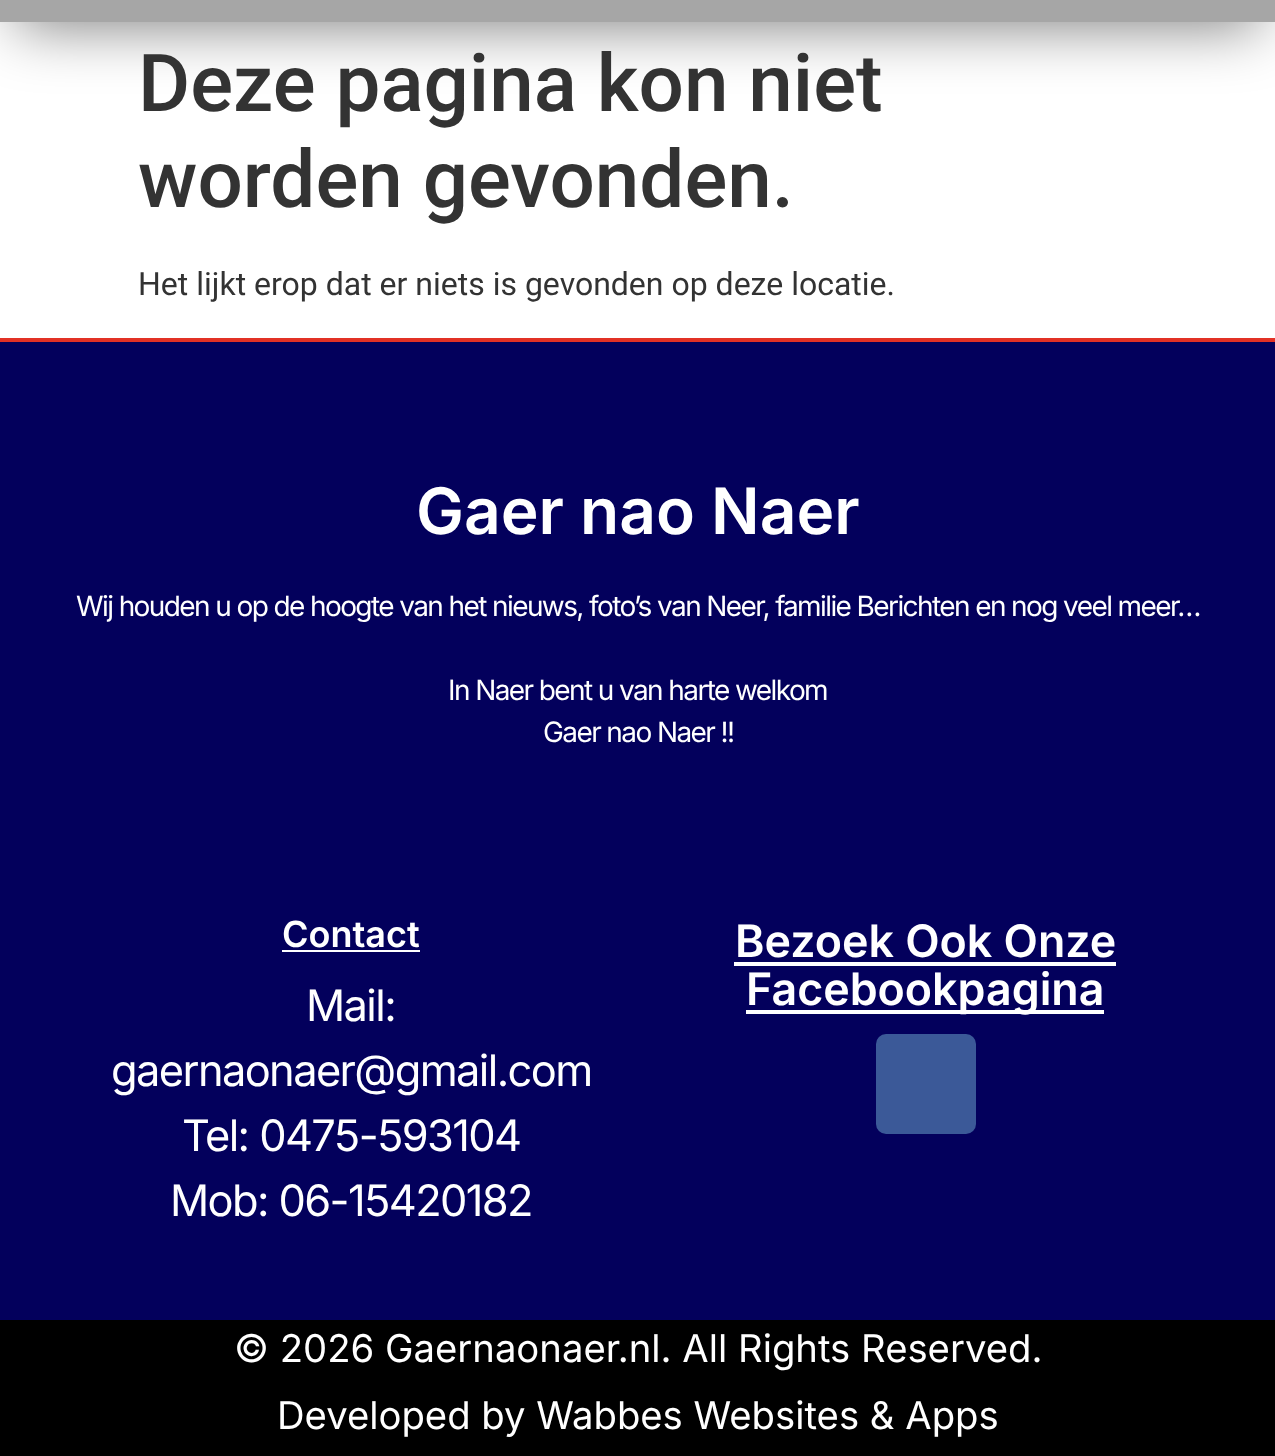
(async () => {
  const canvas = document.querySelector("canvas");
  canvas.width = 1275;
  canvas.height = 1456;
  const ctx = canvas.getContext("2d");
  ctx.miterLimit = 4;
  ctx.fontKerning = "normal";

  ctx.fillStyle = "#ffffff";
  ctx.fillRect(0, 0, 1275, 1456);
  ctx.fillStyle = "rgba(0, 0, 0, 0.5)";
  ctx.filter = "blur(30px)";
  ctx.beginPath();
  ctx.rect(16, -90, 1244, 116);
  ctx.fill();
  ctx.filter = "none";
  for (const [x, y, w, h, color] of [
    [0, 0, 1275, 22, "#a6a6a6"],
    [0, 342, 1275, 978, "#03005c"],
    [0, 338, 1275, 4, "#e23125"],
    [282, 950, 138, 2, "#ffffff"],
    [734, 962, 382, 4, "#ffffff"],
    [746, 1010, 358, 4, "#ffffff"],
  ]) {
    ctx.fillStyle = color;
    ctx.fillRect(x, y, w, h);
  }
  ctx.fillStyle = "#3b5998";
  ctx.beginPath();
  ctx.roundRect(876, 1034, 100, 100, 10);
  ctx.fill();
  ctx.fillStyle = "#000000";
  ctx.fillRect(0, 1320, 1275, 136);
  ctx.font = "500 80px Roboto";
  ctx.fillStyle = "#333333";
  ctx.fillText("Deze pagina kon niet", 138, 111);
  ctx.fillText("worden gevonden.", 138, 207);
  ctx.font = "32px Roboto";
  ctx.fillText("Het lijkt erop dat er niets is gevonden op deze locatie.", 138, 295);
  ctx.font = "600 64px Inter";
  ctx.fillStyle = "#ffffff";
  ctx.fillText("Gaer nao Naer", 416, 534);
  ctx.letterSpacing = "-1.6px";
  ctx.font = "28px Inter";
  for (const [text, x, y] of [
    ["Wij houden u op de hoogte van het nieuws, foto’s van Neer, f", 76, 616],
    ["amilie Berichten en nog veel meer…", 783, 616],
    ["In Naer bent u van harte welkom", 448, 700],
    ["Gaer nao Naer !!", 543, 742],
  ]) {
    ctx.fillText(text, x, y);
  }
  ctx.letterSpacing = "0px";
  ctx.font = "600 36px Inter";
  ctx.fillText("Contact", 282, 947);
  ctx.letterSpacing = "-1.6px";
  ctx.font = "43.4px Inter";
  for (const [text, x, y] of [
    ["Mail:", 306, 1021],
    ["gaernaonaer@gmail.com", 111, 1086],
    ["Tel: 0475-593104", 182, 1151],
    ["Mob: 06-15420182", 170, 1216],
  ]) {
    ctx.fillText(text, x, y);
  }
  ctx.letterSpacing = "0px";
  ctx.font = "600 44.75px Inter";
  ctx.fillText("Bezoek Ook Onze", 735, 957);
  ctx.fillText("Facebookpagina", 746, 1005);
  ctx.font = "38.25px Inter";
  ctx.fillText("© 2026 Gaernaonaer.nl. All Rights Reserved.", 234, 1362);
  ctx.fillText("Developed by Wabbes Websites & Apps", 277, 1429);
})();
